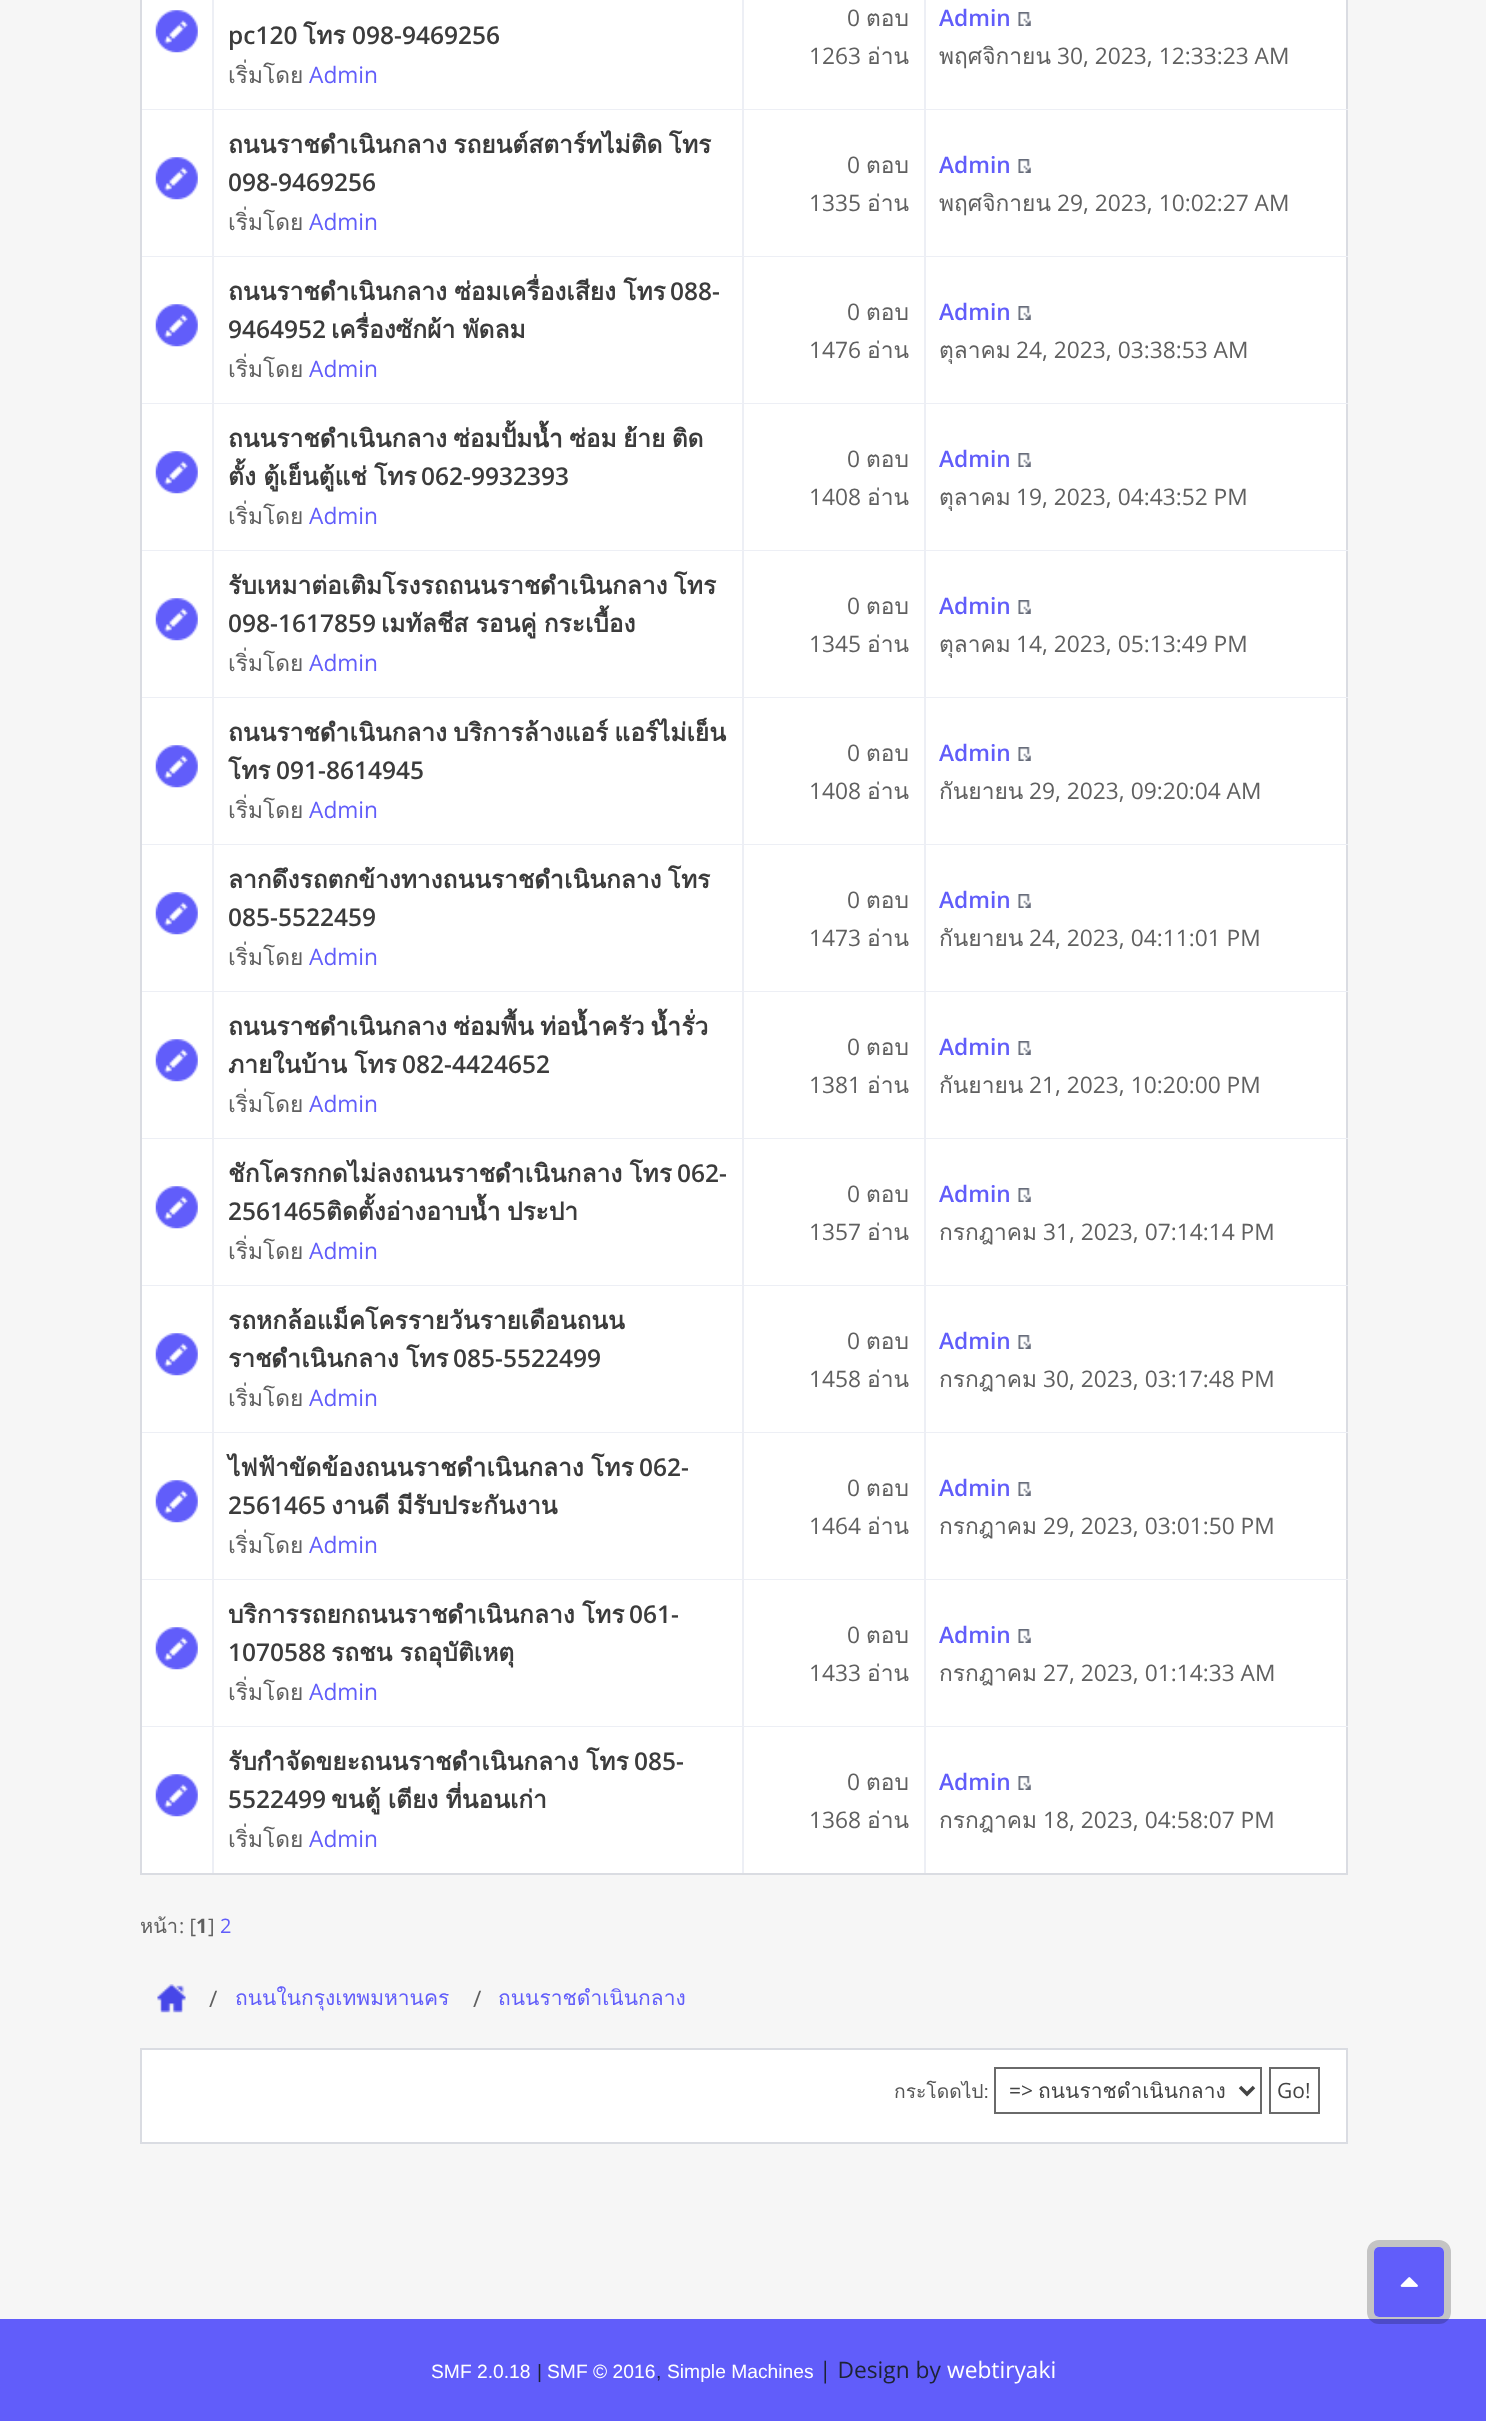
(async () => {
  const canvas = document.querySelector("canvas");
  canvas.width = 1486;
  canvas.height = 2421;
  const ctx = canvas.getContext("2d");
  ctx.miterLimit = 4;
  ctx.fontKerning = "normal";
  async function loadImage(src) {
    const img = new Image();
    img.src = src;
    await img.decode();
    return img;
  }
  let path;

  ctx.fillStyle = "#615dfa";
  ctx.fillRect(0, 0, 1486, 2421);
  for (const [x, y, w, h, color] of [
    [0, 0, 1486, 2319, "#f6f6f6"],
    [142, 0, 70, 109, "#ffffff"],
    [212, 0, 2, 1874, "#edeff5"],
    [140, 109, 74, 1, "#edeff5"],
    [140, 0, 2, 110, "#dadce2"],
  ]) {
    ctx.fillStyle = color;
    ctx.fillRect(x, y, w, h);
  }
  ctx.drawImage(await loadImage("img/1.png"), 155, 10, 43, 43);
  for (const [x, y, w, h, color] of [
    [214, 0, 528, 109, "#ffffff"],
    [742, 0, 2, 1874, "#edeff5"],
    [214, 109, 530, 1, "#edeff5"],
    [744, 0, 180, 109, "#ffffff"],
    [924, 0, 2, 1874, "#edeff5"],
    [744, 109, 182, 1, "#edeff5"],
    [926, 0, 420, 109, "#ffffff"],
    [1346, 0, 2, 1874, "#dadce2"],
    [926, 109, 422, 1, "#edeff5"],
  ]) {
    ctx.fillStyle = color;
    ctx.fillRect(x, y, w, h);
  }
  ctx.drawImage(await loadImage("img/2.png"), 1018, 12, 13, 14);
  for (const [x, y, w, h, color] of [
    [142, 110, 70, 146, "#ffffff"],
    [140, 256, 1208, 1, "#edeff5"],
    [140, 110, 2, 147, "#dadce2"],
  ]) {
    ctx.fillStyle = color;
    ctx.fillRect(x, y, w, h);
  }
  ctx.drawImage(await loadImage("img/3.png"), 155, 157, 43, 43);
  for (const [x, y, w, h, color] of [
    [214, 110, 528, 146, "#ffffff"],
    [744, 110, 180, 146, "#ffffff"],
    [926, 110, 420, 146, "#ffffff"],
  ]) {
    ctx.fillStyle = color;
    ctx.fillRect(x, y, w, h);
  }
  ctx.drawImage(await loadImage("img/2.png"), 1018, 159, 13, 14);
  for (const [x, y, w, h, color] of [
    [142, 257, 70, 146, "#ffffff"],
    [140, 403, 1208, 1, "#edeff5"],
    [140, 257, 2, 147, "#dadce2"],
  ]) {
    ctx.fillStyle = color;
    ctx.fillRect(x, y, w, h);
  }
  ctx.drawImage(await loadImage("img/3.png"), 155, 304, 43, 43);
  for (const [x, y, w, h, color] of [
    [214, 257, 528, 146, "#ffffff"],
    [744, 257, 180, 146, "#ffffff"],
    [926, 257, 420, 146, "#ffffff"],
  ]) {
    ctx.fillStyle = color;
    ctx.fillRect(x, y, w, h);
  }
  ctx.drawImage(await loadImage("img/2.png"), 1018, 306, 13, 14);
  for (const [x, y, w, h, color] of [
    [142, 404, 70, 146, "#ffffff"],
    [140, 550, 1208, 1, "#edeff5"],
    [140, 404, 2, 147, "#dadce2"],
  ]) {
    ctx.fillStyle = color;
    ctx.fillRect(x, y, w, h);
  }
  ctx.drawImage(await loadImage("img/3.png"), 155, 451, 43, 43);
  for (const [x, y, w, h, color] of [
    [214, 404, 528, 146, "#ffffff"],
    [744, 404, 180, 146, "#ffffff"],
    [926, 404, 420, 146, "#ffffff"],
  ]) {
    ctx.fillStyle = color;
    ctx.fillRect(x, y, w, h);
  }
  ctx.drawImage(await loadImage("img/2.png"), 1018, 453, 13, 14);
  for (const [x, y, w, h, color] of [
    [142, 551, 70, 146, "#ffffff"],
    [140, 697, 1208, 1, "#edeff5"],
    [140, 551, 2, 147, "#dadce2"],
  ]) {
    ctx.fillStyle = color;
    ctx.fillRect(x, y, w, h);
  }
  ctx.drawImage(await loadImage("img/3.png"), 155, 598, 43, 43);
  for (const [x, y, w, h, color] of [
    [214, 551, 528, 146, "#ffffff"],
    [744, 551, 180, 146, "#ffffff"],
    [926, 551, 420, 146, "#ffffff"],
  ]) {
    ctx.fillStyle = color;
    ctx.fillRect(x, y, w, h);
  }
  ctx.drawImage(await loadImage("img/2.png"), 1018, 600, 13, 14);
  for (const [x, y, w, h, color] of [
    [142, 698, 70, 146, "#ffffff"],
    [140, 844, 1208, 1, "#edeff5"],
    [140, 698, 2, 147, "#dadce2"],
  ]) {
    ctx.fillStyle = color;
    ctx.fillRect(x, y, w, h);
  }
  ctx.drawImage(await loadImage("img/3.png"), 155, 745, 43, 43);
  for (const [x, y, w, h, color] of [
    [214, 698, 528, 146, "#ffffff"],
    [744, 698, 180, 146, "#ffffff"],
    [926, 698, 420, 146, "#ffffff"],
  ]) {
    ctx.fillStyle = color;
    ctx.fillRect(x, y, w, h);
  }
  ctx.drawImage(await loadImage("img/2.png"), 1018, 747, 13, 14);
  for (const [x, y, w, h, color] of [
    [142, 845, 70, 146, "#ffffff"],
    [140, 991, 1208, 1, "#edeff5"],
    [140, 845, 2, 147, "#dadce2"],
  ]) {
    ctx.fillStyle = color;
    ctx.fillRect(x, y, w, h);
  }
  ctx.drawImage(await loadImage("img/3.png"), 155, 892, 43, 43);
  for (const [x, y, w, h, color] of [
    [214, 845, 528, 146, "#ffffff"],
    [744, 845, 180, 146, "#ffffff"],
    [926, 845, 420, 146, "#ffffff"],
  ]) {
    ctx.fillStyle = color;
    ctx.fillRect(x, y, w, h);
  }
  ctx.drawImage(await loadImage("img/2.png"), 1018, 894, 13, 14);
  for (const [x, y, w, h, color] of [
    [142, 992, 70, 146, "#ffffff"],
    [140, 1138, 1208, 1, "#edeff5"],
    [140, 992, 2, 147, "#dadce2"],
  ]) {
    ctx.fillStyle = color;
    ctx.fillRect(x, y, w, h);
  }
  ctx.drawImage(await loadImage("img/3.png"), 155, 1039, 43, 43);
  for (const [x, y, w, h, color] of [
    [214, 992, 528, 146, "#ffffff"],
    [744, 992, 180, 146, "#ffffff"],
    [926, 992, 420, 146, "#ffffff"],
  ]) {
    ctx.fillStyle = color;
    ctx.fillRect(x, y, w, h);
  }
  ctx.drawImage(await loadImage("img/2.png"), 1018, 1041, 13, 14);
  for (const [x, y, w, h, color] of [
    [142, 1139, 70, 146, "#ffffff"],
    [140, 1285, 1208, 1, "#edeff5"],
    [140, 1139, 2, 147, "#dadce2"],
  ]) {
    ctx.fillStyle = color;
    ctx.fillRect(x, y, w, h);
  }
  ctx.drawImage(await loadImage("img/3.png"), 155, 1186, 43, 43);
  for (const [x, y, w, h, color] of [
    [214, 1139, 528, 146, "#ffffff"],
    [744, 1139, 180, 146, "#ffffff"],
    [926, 1139, 420, 146, "#ffffff"],
  ]) {
    ctx.fillStyle = color;
    ctx.fillRect(x, y, w, h);
  }
  ctx.drawImage(await loadImage("img/2.png"), 1018, 1188, 13, 14);
  for (const [x, y, w, h, color] of [
    [142, 1286, 70, 146, "#ffffff"],
    [140, 1432, 1208, 1, "#edeff5"],
    [140, 1286, 2, 147, "#dadce2"],
  ]) {
    ctx.fillStyle = color;
    ctx.fillRect(x, y, w, h);
  }
  ctx.drawImage(await loadImage("img/3.png"), 155, 1333, 43, 43);
  for (const [x, y, w, h, color] of [
    [214, 1286, 528, 146, "#ffffff"],
    [744, 1286, 180, 146, "#ffffff"],
    [926, 1286, 420, 146, "#ffffff"],
  ]) {
    ctx.fillStyle = color;
    ctx.fillRect(x, y, w, h);
  }
  ctx.drawImage(await loadImage("img/2.png"), 1018, 1335, 13, 14);
  for (const [x, y, w, h, color] of [
    [142, 1433, 70, 146, "#ffffff"],
    [140, 1579, 1208, 1, "#edeff5"],
    [140, 1433, 2, 147, "#dadce2"],
  ]) {
    ctx.fillStyle = color;
    ctx.fillRect(x, y, w, h);
  }
  ctx.drawImage(await loadImage("img/3.png"), 155, 1480, 43, 43);
  for (const [x, y, w, h, color] of [
    [214, 1433, 528, 146, "#ffffff"],
    [744, 1433, 180, 146, "#ffffff"],
    [926, 1433, 420, 146, "#ffffff"],
  ]) {
    ctx.fillStyle = color;
    ctx.fillRect(x, y, w, h);
  }
  ctx.drawImage(await loadImage("img/2.png"), 1018, 1482, 13, 14);
  for (const [x, y, w, h, color] of [
    [142, 1580, 70, 146, "#ffffff"],
    [140, 1726, 1208, 1, "#edeff5"],
    [140, 1580, 2, 147, "#dadce2"],
  ]) {
    ctx.fillStyle = color;
    ctx.fillRect(x, y, w, h);
  }
  ctx.drawImage(await loadImage("img/3.png"), 155, 1627, 43, 43);
  for (const [x, y, w, h, color] of [
    [214, 1580, 528, 146, "#ffffff"],
    [744, 1580, 180, 146, "#ffffff"],
    [926, 1580, 420, 146, "#ffffff"],
  ]) {
    ctx.fillStyle = color;
    ctx.fillRect(x, y, w, h);
  }
  ctx.drawImage(await loadImage("img/2.png"), 1018, 1629, 13, 14);
  for (const [x, y, w, h, color] of [
    [142, 1727, 70, 146, "#ffffff"],
    [140, 1873, 1208, 2, "#dadce2"],
    [140, 1727, 2, 147, "#dadce2"],
  ]) {
    ctx.fillStyle = color;
    ctx.fillRect(x, y, w, h);
  }
  ctx.drawImage(await loadImage("img/3.png"), 155, 1774, 43, 43);
  for (const [x, y, w, h, color] of [
    [214, 1727, 528, 146, "#ffffff"],
    [744, 1727, 180, 146, "#ffffff"],
    [926, 1727, 420, 146, "#ffffff"],
  ]) {
    ctx.fillStyle = color;
    ctx.fillRect(x, y, w, h);
  }
  ctx.drawImage(await loadImage("img/2.png"), 1018, 1776, 13, 14);
  ctx.drawImage(await loadImage("img/4.png"), 157, 1984, 29, 29);
  ctx.beginPath();
  ctx.rect(141, 2049, 1206, 94);
  ctx.fill();
  ctx.strokeStyle = "#dadce2";
  ctx.lineWidth = 2;
  ctx.stroke();
  ctx.strokeStyle = "#6a6a6a";
  ctx.strokeRect(995, 2068, 266, 45);
  path = new Path2D("M1240 2087L1247 2094L1254 2087");
  ctx.strokeStyle = "#444444";
  ctx.lineWidth = 3.5;
  ctx.stroke(path);
  ctx.strokeStyle = "#6a6a6a";
  ctx.lineWidth = 2;
  ctx.strokeRect(1270, 2068, 49, 45);
  ctx.beginPath();
  ctx.roundRect(1370.5, 2243.5, 77, 77, 8.5);
  ctx.strokeStyle = "rgba(0, 0, 0, 0.2)";
  ctx.lineWidth = 7;
  ctx.stroke();
  ctx.fillStyle = "#615dfa";
  ctx.beginPath();
  ctx.roundRect(1374, 2247, 70, 70, 5);
  ctx.fill();
  ctx.drawImage(await loadImage("img/5.png"), 1400, 2277, 18, 10);
  ctx.font = "600 24.5px Open Sans";
  ctx.fillStyle = "#3c3c3c";
  ctx.fillText("pc120", 228, 44);
  ctx.font = "bold 24.5px Loma";
  ctx.fillText("โทร", 303, 44);
  ctx.font = "600 24.5px Open Sans";
  ctx.fillText("098-9469256", 352, 44);
  ctx.font = "22.75px Loma";
  ctx.fillStyle = "#606060";
  ctx.fillText("เริ่มโดย", 228, 83);
  ctx.font = "22.75px Open Sans";
  ctx.fillStyle = "#615dfa";
  ctx.fillText("Admin", 309, 83);
  ctx.fillStyle = "#606060";
  ctx.fillText("0", 847, 26);
  ctx.font = "22.75px Loma";
  ctx.fillText("ตอบ", 866, 26);
  ctx.font = "22.75px Open Sans";
  ctx.fillText("1263", 809, 64);
  ctx.font = "22.75px Loma";
  ctx.fillText("อ่าน", 867, 64);
  ctx.font = "600 22.75px Open Sans";
  ctx.fillStyle = "#615dfa";
  ctx.fillText("Admin", 939, 26);
  ctx.font = "22.75px Loma";
  ctx.fillStyle = "#606060";
  ctx.fillText("พฤศจิกายน", 939, 64);
  ctx.font = "22.75px Open Sans";
  ctx.fillText("30, 2023, 12:33:23 AM", 1057, 64);
  ctx.wordSpacing = "-2px";
  ctx.font = "bold 24.5px Loma";
  ctx.fillStyle = "#3c3c3c";
  ctx.fillText("ถนนราชดำเนินกลาง รถยนต์สตาร์ทไม่ติด โทร", 228, 153);
  ctx.wordSpacing = "0px";
  ctx.font = "600 24.5px Open Sans";
  ctx.fillText("098-9469256", 228, 191);
  ctx.font = "22.75px Loma";
  ctx.fillStyle = "#606060";
  ctx.fillText("เริ่มโดย", 228, 230);
  ctx.font = "22.75px Open Sans";
  ctx.fillStyle = "#615dfa";
  ctx.fillText("Admin", 309, 230);
  ctx.fillStyle = "#606060";
  ctx.fillText("0", 847, 173);
  ctx.font = "22.75px Loma";
  ctx.fillText("ตอบ", 866, 173);
  ctx.font = "22.75px Open Sans";
  ctx.fillText("1335", 809, 211);
  ctx.font = "22.75px Loma";
  ctx.fillText("อ่าน", 867, 211);
  ctx.font = "600 22.75px Open Sans";
  ctx.fillStyle = "#615dfa";
  ctx.fillText("Admin", 939, 173);
  ctx.font = "22.75px Loma";
  ctx.fillStyle = "#606060";
  ctx.fillText("พฤศจิกายน", 939, 211);
  ctx.font = "22.75px Open Sans";
  ctx.fillText("29, 2023, 10:02:27 AM", 1057, 211);
  ctx.wordSpacing = "-1px";
  ctx.font = "bold 24.5px Loma";
  ctx.fillStyle = "#3c3c3c";
  ctx.fillText("ถนนราชดำเนินกลาง ซ่อมเครื่องเสียง โทร", 228, 300);
  ctx.wordSpacing = "0px";
  ctx.font = "600 24.5px Open Sans";
  ctx.fillText("088-", 670, 300);
  ctx.fillText("9464952", 228, 338);
  ctx.wordSpacing = "-1px";
  ctx.font = "bold 24.5px Loma";
  ctx.fillText("เครื่องซักผ้า พัดลม", 331, 338);
  ctx.wordSpacing = "0px";
  ctx.font = "22.75px Loma";
  ctx.fillStyle = "#606060";
  ctx.fillText("เริ่มโดย", 228, 377);
  ctx.font = "22.75px Open Sans";
  ctx.fillStyle = "#615dfa";
  ctx.fillText("Admin", 309, 377);
  ctx.fillStyle = "#606060";
  ctx.fillText("0", 847, 320);
  ctx.font = "22.75px Loma";
  ctx.fillText("ตอบ", 866, 320);
  ctx.font = "22.75px Open Sans";
  ctx.fillText("1476", 809, 358);
  ctx.font = "22.75px Loma";
  ctx.fillText("อ่าน", 867, 358);
  ctx.font = "600 22.75px Open Sans";
  ctx.fillStyle = "#615dfa";
  ctx.fillText("Admin", 939, 320);
  ctx.font = "22.75px Loma";
  ctx.fillStyle = "#606060";
  ctx.fillText("ตุลาคม", 939, 358);
  ctx.font = "22.75px Open Sans";
  ctx.fillText("24, 2023, 03:38:53 AM", 1016, 358);
  ctx.wordSpacing = "-2px";
  ctx.font = "bold 24.5px Loma";
  ctx.fillStyle = "#3c3c3c";
  ctx.fillText("ถนนราชดำเนินกลาง ซ่อมปั้มน้ำ ซ่อม ย้าย ติด", 228, 447);
  ctx.wordSpacing = "-1px";
  ctx.fillText("ตั้ง ตู้เย็นตู้แช่ โทร", 228, 485);
  ctx.wordSpacing = "0px";
  ctx.font = "600 24.5px Open Sans";
  ctx.fillText("062-9932393", 421, 485);
  ctx.font = "22.75px Loma";
  ctx.fillStyle = "#606060";
  ctx.fillText("เริ่มโดย", 228, 524);
  ctx.font = "22.75px Open Sans";
  ctx.fillStyle = "#615dfa";
  ctx.fillText("Admin", 309, 524);
  ctx.fillStyle = "#606060";
  ctx.fillText("0", 847, 467);
  ctx.font = "22.75px Loma";
  ctx.fillText("ตอบ", 866, 467);
  ctx.font = "22.75px Open Sans";
  ctx.fillText("1408", 809, 505);
  ctx.font = "22.75px Loma";
  ctx.fillText("อ่าน", 867, 505);
  ctx.font = "600 22.75px Open Sans";
  ctx.fillStyle = "#615dfa";
  ctx.fillText("Admin", 939, 467);
  ctx.font = "22.75px Loma";
  ctx.fillStyle = "#606060";
  ctx.fillText("ตุลาคม", 939, 505);
  ctx.font = "22.75px Open Sans";
  ctx.fillText("19, 2023, 04:43:52 PM", 1016, 505);
  ctx.wordSpacing = "-2px";
  ctx.font = "bold 24.5px Loma";
  ctx.fillStyle = "#3c3c3c";
  ctx.fillText("รับเหมาต่อเติมโรงรถถนนราชดำเนินกลาง โทร", 228, 594);
  ctx.wordSpacing = "0px";
  ctx.font = "600 24.5px Open Sans";
  ctx.fillText("098-1617859", 228, 632);
  ctx.wordSpacing = "-1px";
  ctx.font = "bold 24.5px Loma";
  ctx.fillText("เมทัลชีส รอนคู่ กระเบื้อง", 381, 632);
  ctx.wordSpacing = "0px";
  ctx.font = "22.75px Loma";
  ctx.fillStyle = "#606060";
  ctx.fillText("เริ่มโดย", 228, 671);
  ctx.font = "22.75px Open Sans";
  ctx.fillStyle = "#615dfa";
  ctx.fillText("Admin", 309, 671);
  ctx.fillStyle = "#606060";
  ctx.fillText("0", 847, 614);
  ctx.font = "22.75px Loma";
  ctx.fillText("ตอบ", 866, 614);
  ctx.font = "22.75px Open Sans";
  ctx.fillText("1345", 809, 652);
  ctx.font = "22.75px Loma";
  ctx.fillText("อ่าน", 867, 652);
  ctx.font = "600 22.75px Open Sans";
  ctx.fillStyle = "#615dfa";
  ctx.fillText("Admin", 939, 614);
  ctx.font = "22.75px Loma";
  ctx.fillStyle = "#606060";
  ctx.fillText("ตุลาคม", 939, 652);
  ctx.font = "22.75px Open Sans";
  ctx.fillText("14, 2023, 05:13:49 PM", 1016, 652);
  ctx.wordSpacing = "-2px";
  ctx.font = "bold 24.5px Loma";
  ctx.fillStyle = "#3c3c3c";
  ctx.fillText("ถนนราชดำเนินกลาง บริการล้างแอร์ แอร์ไม่เย็น", 228, 741);
  ctx.wordSpacing = "0px";
  ctx.fillText("โทร", 228, 779);
  ctx.font = "600 24.5px Open Sans";
  ctx.fillText("091-8614945", 276, 779);
  ctx.font = "22.75px Loma";
  ctx.fillStyle = "#606060";
  ctx.fillText("เริ่มโดย", 228, 818);
  ctx.font = "22.75px Open Sans";
  ctx.fillStyle = "#615dfa";
  ctx.fillText("Admin", 309, 818);
  ctx.fillStyle = "#606060";
  ctx.fillText("0", 847, 761);
  ctx.font = "22.75px Loma";
  ctx.fillText("ตอบ", 866, 761);
  ctx.font = "22.75px Open Sans";
  ctx.fillText("1408", 809, 799);
  ctx.font = "22.75px Loma";
  ctx.fillText("อ่าน", 867, 799);
  ctx.font = "600 22.75px Open Sans";
  ctx.fillStyle = "#615dfa";
  ctx.fillText("Admin", 939, 761);
  ctx.font = "22.75px Loma";
  ctx.fillStyle = "#606060";
  ctx.fillText("กันยายน", 939, 799);
  ctx.font = "22.75px Open Sans";
  ctx.fillText("29, 2023, 09:20:04 AM", 1029, 799);
  ctx.wordSpacing = "-2px";
  ctx.font = "bold 24.5px Loma";
  ctx.fillStyle = "#3c3c3c";
  ctx.fillText("ลากดึงรถตกข้างทางถนนราชดำเนินกลาง โทร", 228, 888);
  ctx.wordSpacing = "0px";
  ctx.font = "600 24.5px Open Sans";
  ctx.fillText("085-5522459", 228, 926);
  ctx.font = "22.75px Loma";
  ctx.fillStyle = "#606060";
  ctx.fillText("เริ่มโดย", 228, 965);
  ctx.font = "22.75px Open Sans";
  ctx.fillStyle = "#615dfa";
  ctx.fillText("Admin", 309, 965);
  ctx.fillStyle = "#606060";
  ctx.fillText("0", 847, 908);
  ctx.font = "22.75px Loma";
  ctx.fillText("ตอบ", 866, 908);
  ctx.font = "22.75px Open Sans";
  ctx.fillText("1473", 809, 946);
  ctx.font = "22.75px Loma";
  ctx.fillText("อ่าน", 867, 946);
  ctx.font = "600 22.75px Open Sans";
  ctx.fillStyle = "#615dfa";
  ctx.fillText("Admin", 939, 908);
  ctx.font = "22.75px Loma";
  ctx.fillStyle = "#606060";
  ctx.fillText("กันยายน", 939, 946);
  ctx.font = "22.75px Open Sans";
  ctx.fillText("24, 2023, 04:11:01 PM", 1029, 946);
  ctx.wordSpacing = "-2px";
  ctx.font = "bold 24.5px Loma";
  ctx.fillStyle = "#3c3c3c";
  ctx.fillText("ถนนราชดำเนินกลาง ซ่อมพื้น ท่อน้ำครัว น้ำรั่ว", 228, 1035);
  ctx.wordSpacing = "-1px";
  ctx.fillText("ภายในบ้าน โทร", 228, 1073);
  ctx.wordSpacing = "0px";
  ctx.font = "600 24.5px Open Sans";
  ctx.fillText("082-4424652", 402, 1073);
  ctx.font = "22.75px Loma";
  ctx.fillStyle = "#606060";
  ctx.fillText("เริ่มโดย", 228, 1112);
  ctx.font = "22.75px Open Sans";
  ctx.fillStyle = "#615dfa";
  ctx.fillText("Admin", 309, 1112);
  ctx.fillStyle = "#606060";
  ctx.fillText("0", 847, 1055);
  ctx.font = "22.75px Loma";
  ctx.fillText("ตอบ", 866, 1055);
  ctx.font = "22.75px Open Sans";
  ctx.fillText("1381", 809, 1093);
  ctx.font = "22.75px Loma";
  ctx.fillText("อ่าน", 867, 1093);
  ctx.font = "600 22.75px Open Sans";
  ctx.fillStyle = "#615dfa";
  ctx.fillText("Admin", 939, 1055);
  ctx.font = "22.75px Loma";
  ctx.fillStyle = "#606060";
  ctx.fillText("กันยายน", 939, 1093);
  ctx.font = "22.75px Open Sans";
  ctx.fillText("21, 2023, 10:20:00 PM", 1029, 1093);
  ctx.wordSpacing = "-1px";
  ctx.font = "bold 24.5px Loma";
  ctx.fillStyle = "#3c3c3c";
  ctx.fillText("ชักโครกกดไม่ลงถนนราชดำเนินกลาง โทร", 228, 1182);
  ctx.wordSpacing = "0px";
  ctx.font = "600 24.5px Open Sans";
  ctx.fillText("062-", 677, 1182);
  ctx.fillText("2561465", 228, 1220);
  ctx.wordSpacing = "-2px";
  ctx.font = "bold 24.5px Loma";
  ctx.fillText("ติดตั้งอ่างอาบน้ำ ประปา", 326, 1220);
  ctx.wordSpacing = "0px";
  ctx.font = "22.75px Loma";
  ctx.fillStyle = "#606060";
  ctx.fillText("เริ่มโดย", 228, 1259);
  ctx.font = "22.75px Open Sans";
  ctx.fillStyle = "#615dfa";
  ctx.fillText("Admin", 309, 1259);
  ctx.fillStyle = "#606060";
  ctx.fillText("0", 847, 1202);
  ctx.font = "22.75px Loma";
  ctx.fillText("ตอบ", 866, 1202);
  ctx.font = "22.75px Open Sans";
  ctx.fillText("1357", 809, 1240);
  ctx.font = "22.75px Loma";
  ctx.fillText("อ่าน", 867, 1240);
  ctx.font = "600 22.75px Open Sans";
  ctx.fillStyle = "#615dfa";
  ctx.fillText("Admin", 939, 1202);
  ctx.font = "22.75px Loma";
  ctx.fillStyle = "#606060";
  ctx.fillText("กรกฎาคม", 939, 1240);
  ctx.font = "22.75px Open Sans";
  ctx.fillText("31, 2023, 07:14:14 PM", 1043, 1240);
  ctx.font = "bold 24.5px Loma";
  ctx.fillStyle = "#3c3c3c";
  ctx.fillText("รถหกล้อแม็คโครรายวันรายเดือนถนน", 228, 1329);
  ctx.wordSpacing = "-1px";
  ctx.fillText("ราชดำเนินกลาง โทร", 228, 1367);
  ctx.wordSpacing = "0px";
  ctx.font = "600 24.5px Open Sans";
  ctx.fillText("085-5522499", 453, 1367);
  ctx.font = "22.75px Loma";
  ctx.fillStyle = "#606060";
  ctx.fillText("เริ่มโดย", 228, 1406);
  ctx.font = "22.75px Open Sans";
  ctx.fillStyle = "#615dfa";
  ctx.fillText("Admin", 309, 1406);
  ctx.fillStyle = "#606060";
  ctx.fillText("0", 847, 1349);
  ctx.font = "22.75px Loma";
  ctx.fillText("ตอบ", 866, 1349);
  ctx.font = "22.75px Open Sans";
  ctx.fillText("1458", 809, 1387);
  ctx.font = "22.75px Loma";
  ctx.fillText("อ่าน", 867, 1387);
  ctx.font = "600 22.75px Open Sans";
  ctx.fillStyle = "#615dfa";
  ctx.fillText("Admin", 939, 1349);
  ctx.font = "22.75px Loma";
  ctx.fillStyle = "#606060";
  ctx.fillText("กรกฎาคม", 939, 1387);
  ctx.font = "22.75px Open Sans";
  ctx.fillText("30, 2023, 03:17:48 PM", 1043, 1387);
  ctx.wordSpacing = "-1px";
  ctx.font = "bold 24.5px Loma";
  ctx.fillStyle = "#3c3c3c";
  ctx.fillText("ไฟฟ้าขัดข้องถนนราชดำเนินกลาง โทร", 228, 1476);
  ctx.wordSpacing = "0px";
  ctx.font = "600 24.5px Open Sans";
  ctx.fillText("062-", 639, 1476);
  ctx.fillText("2561465", 228, 1514);
  ctx.wordSpacing = "-1px";
  ctx.font = "bold 24.5px Loma";
  ctx.fillText("งานดี มีรับประกันงาน", 331, 1514);
  ctx.wordSpacing = "0px";
  ctx.font = "22.75px Loma";
  ctx.fillStyle = "#606060";
  ctx.fillText("เริ่มโดย", 228, 1553);
  ctx.font = "22.75px Open Sans";
  ctx.fillStyle = "#615dfa";
  ctx.fillText("Admin", 309, 1553);
  ctx.fillStyle = "#606060";
  ctx.fillText("0", 847, 1496);
  ctx.font = "22.75px Loma";
  ctx.fillText("ตอบ", 866, 1496);
  ctx.font = "22.75px Open Sans";
  ctx.fillText("1464", 809, 1534);
  ctx.font = "22.75px Loma";
  ctx.fillText("อ่าน", 867, 1534);
  ctx.font = "600 22.75px Open Sans";
  ctx.fillStyle = "#615dfa";
  ctx.fillText("Admin", 939, 1496);
  ctx.font = "22.75px Loma";
  ctx.fillStyle = "#606060";
  ctx.fillText("กรกฎาคม", 939, 1534);
  ctx.font = "22.75px Open Sans";
  ctx.fillText("29, 2023, 03:01:50 PM", 1043, 1534);
  ctx.wordSpacing = "-1px";
  ctx.font = "bold 24.5px Loma";
  ctx.fillStyle = "#3c3c3c";
  ctx.fillText("บริการรถยกถนนราชดำเนินกลาง โทร", 228, 1623);
  ctx.wordSpacing = "0px";
  ctx.font = "600 24.5px Open Sans";
  ctx.fillText("061-", 629, 1623);
  ctx.fillText("1070588", 228, 1661);
  ctx.wordSpacing = "-1px";
  ctx.font = "bold 24.5px Loma";
  ctx.fillText("รถชน รถอุบัติเหตุ", 331, 1661);
  ctx.wordSpacing = "0px";
  ctx.font = "22.75px Loma";
  ctx.fillStyle = "#606060";
  ctx.fillText("เริ่มโดย", 228, 1700);
  ctx.font = "22.75px Open Sans";
  ctx.fillStyle = "#615dfa";
  ctx.fillText("Admin", 309, 1700);
  ctx.fillStyle = "#606060";
  ctx.fillText("0", 847, 1643);
  ctx.font = "22.75px Loma";
  ctx.fillText("ตอบ", 866, 1643);
  ctx.font = "22.75px Open Sans";
  ctx.fillText("1433", 809, 1681);
  ctx.font = "22.75px Loma";
  ctx.fillText("อ่าน", 867, 1681);
  ctx.font = "600 22.75px Open Sans";
  ctx.fillStyle = "#615dfa";
  ctx.fillText("Admin", 939, 1643);
  ctx.font = "22.75px Loma";
  ctx.fillStyle = "#606060";
  ctx.fillText("กรกฎาคม", 939, 1681);
  ctx.font = "22.75px Open Sans";
  ctx.fillText("27, 2023, 01:14:33 AM", 1043, 1681);
  ctx.wordSpacing = "-1px";
  ctx.font = "bold 24.5px Loma";
  ctx.fillStyle = "#3c3c3c";
  ctx.fillText("รับกำจัดขยะถนนราชดำเนินกลาง โทร", 228, 1770);
  ctx.wordSpacing = "0px";
  ctx.font = "600 24.5px Open Sans";
  ctx.fillText("085-", 634, 1770);
  ctx.fillText("5522499", 228, 1808);
  ctx.wordSpacing = "-1px";
  ctx.font = "bold 24.5px Loma";
  ctx.fillText("ขนตู้ เตียง ที่นอนเก่า", 331, 1808);
  ctx.wordSpacing = "0px";
  ctx.font = "22.75px Loma";
  ctx.fillStyle = "#606060";
  ctx.fillText("เริ่มโดย", 228, 1847);
  ctx.font = "22.75px Open Sans";
  ctx.fillStyle = "#615dfa";
  ctx.fillText("Admin", 309, 1847);
  ctx.fillStyle = "#606060";
  ctx.fillText("0", 847, 1790);
  ctx.font = "22.75px Loma";
  ctx.fillText("ตอบ", 866, 1790);
  ctx.font = "22.75px Open Sans";
  ctx.fillText("1368", 809, 1828);
  ctx.font = "22.75px Loma";
  ctx.fillText("อ่าน", 867, 1828);
  ctx.font = "600 22.75px Open Sans";
  ctx.fillStyle = "#615dfa";
  ctx.fillText("Admin", 939, 1790);
  ctx.font = "22.75px Loma";
  ctx.fillStyle = "#606060";
  ctx.fillText("กรกฎาคม", 939, 1828);
  ctx.font = "22.75px Open Sans";
  ctx.fillText("18, 2023, 04:58:07 PM", 1043, 1828);
  ctx.font = "20px Loma";
  ctx.fillText("หน้า", 140, 1933);
  ctx.font = "20px Open Sans";
  ctx.fillText(": [", 179, 1933);
  ctx.font = "bold 20px Open Sans";
  ctx.fillText("1", 196, 1933);
  ctx.font = "20px Open Sans";
  ctx.fillText("]", 208, 1933);
  ctx.fillStyle = "#615dfa";
  ctx.fillText("2", 220, 1933);
  ctx.font = "22.75px Open Sans";
  ctx.fillStyle = "#606060";
  ctx.fillText("/", 209, 2007);
  ctx.font = "21px Loma";
  ctx.fillStyle = "#615dfa";
  ctx.fillText("ถนนในกรุงเทพมหานคร", 235, 2005);
  ctx.font = "22.75px Open Sans";
  ctx.fillStyle = "#606060";
  ctx.fillText("/", 473, 2007);
  ctx.font = "21px Loma";
  ctx.fillStyle = "#615dfa";
  ctx.fillText("ถนนราชดำเนินกลาง", 498, 2005);
  ctx.font = "19.25px Loma";
  ctx.fillStyle = "#555555";
  ctx.fillText("กระโดดไป:", 894, 2098);
  ctx.font = "21px Open Sans";
  ctx.fillStyle = "#444444";
  ctx.fillText("=>", 1009, 2098);
  ctx.font = "21px Loma";
  ctx.fillText("ถนนราชดำเนินกลาง", 1038, 2098);
  ctx.font = "21px Open Sans";
  ctx.fillText("Go!", 1277, 2098);
  ctx.font = "19.25px Liberation Sans";
  ctx.fillStyle = "#ffffff";
  ctx.fillText("SMF 2.0.18", 431, 2378);
  ctx.fillStyle = "#1d2333";
  ctx.fillText("|", 537, 2378);
  ctx.fillStyle = "#ffffff";
  ctx.fillText("SMF © 2016", 547, 2378);
  ctx.fillStyle = "#1d2333";
  ctx.fillText(",", 656, 2378);
  ctx.fillStyle = "#ffffff";
  ctx.fillText("Simple Machines", 667, 2378);
  ctx.font = "22.75px Open Sans";
  ctx.fillStyle = "#1d2333";
  ctx.fillText("| Design by", 819, 2378);
  ctx.fillStyle = "#ffffff";
  ctx.fillText("webtiryaki", 947, 2378);
})();
